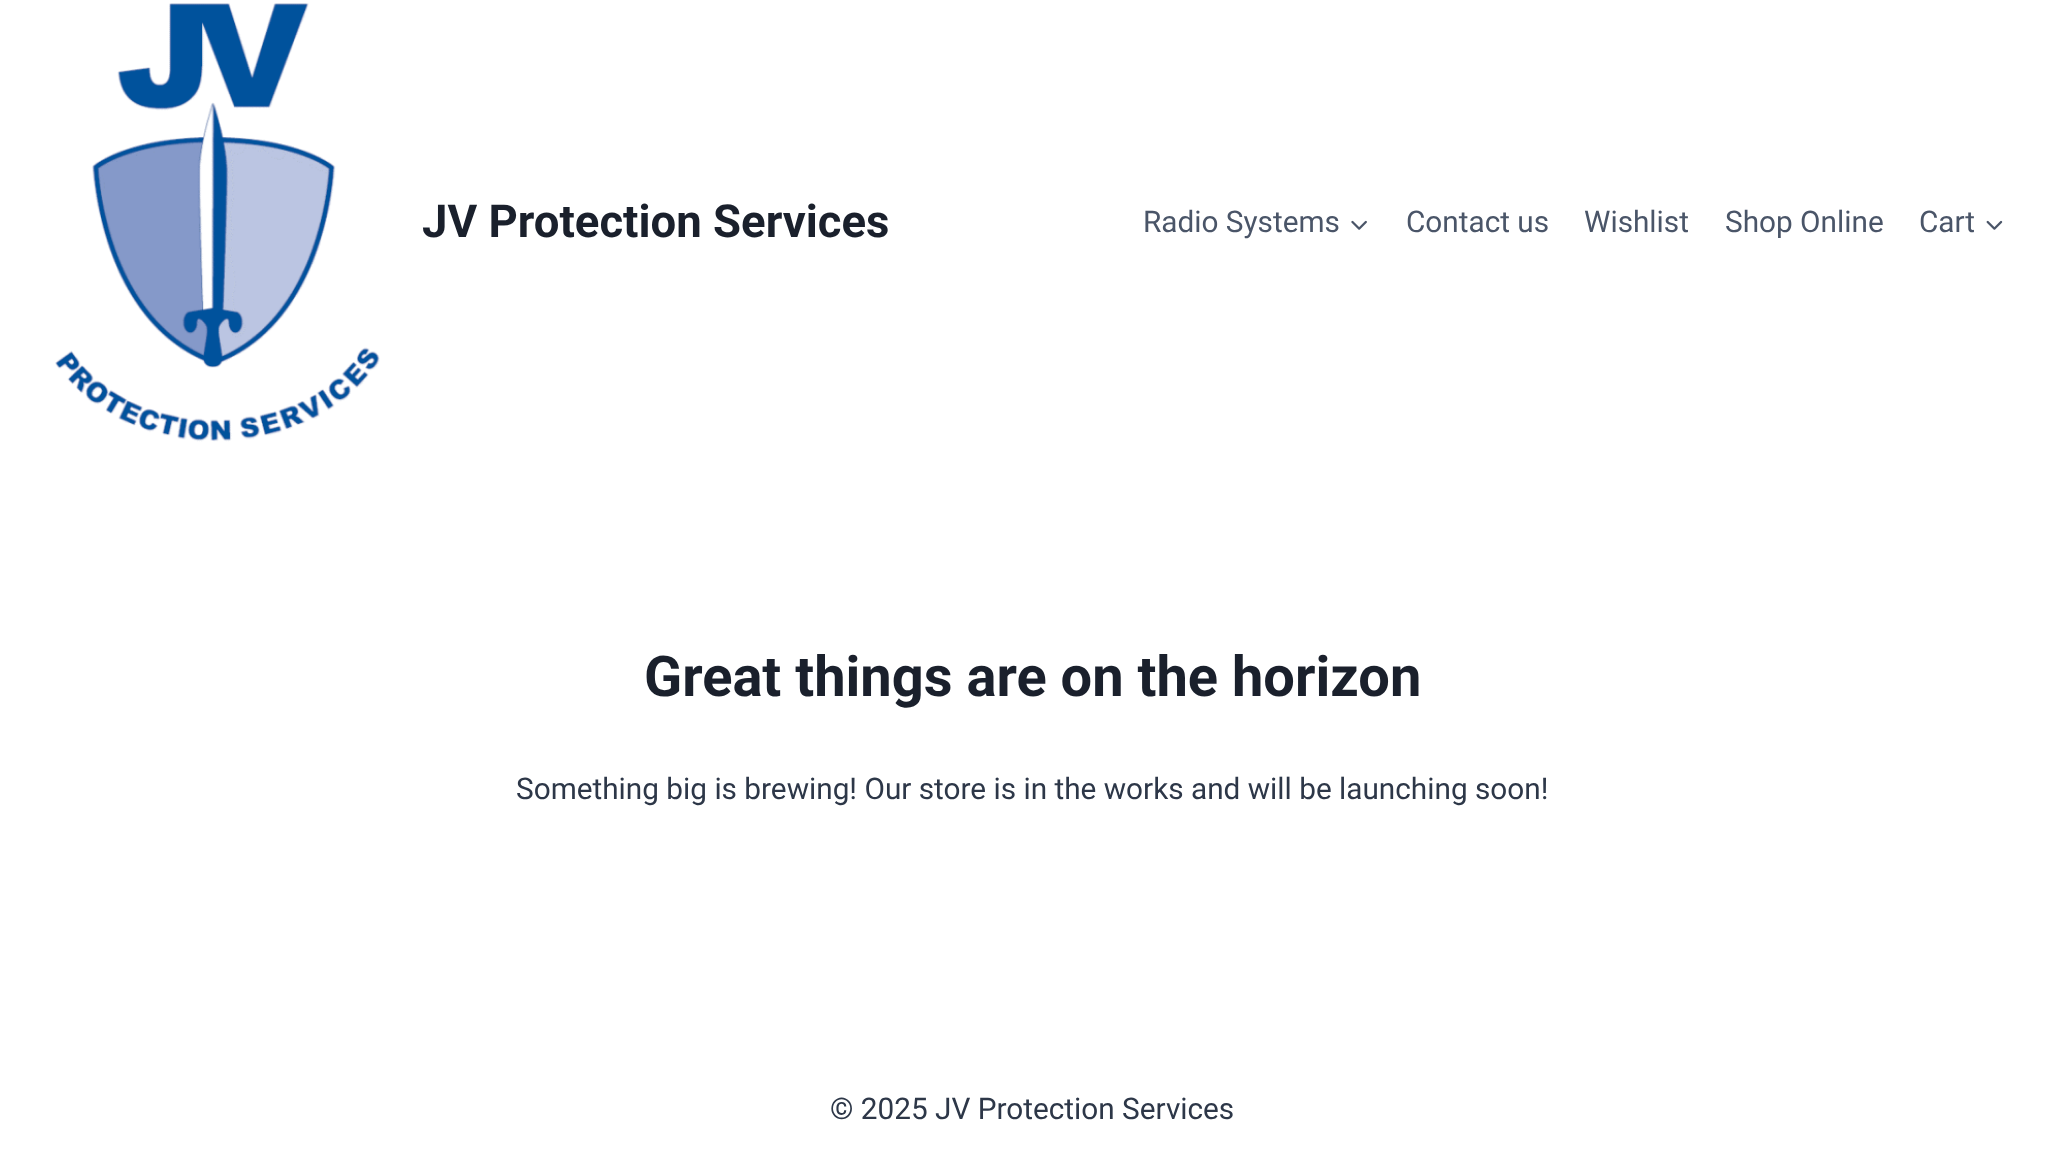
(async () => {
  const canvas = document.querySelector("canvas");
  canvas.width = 2065;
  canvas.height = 1168;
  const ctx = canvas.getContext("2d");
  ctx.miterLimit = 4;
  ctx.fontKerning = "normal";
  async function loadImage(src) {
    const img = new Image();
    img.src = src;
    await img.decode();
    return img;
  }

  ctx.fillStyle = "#ffffff";
  ctx.fillRect(0, 0, 2065, 1168);
  ctx.drawImage(await loadImage("img/1.png"), 55, 3, 325, 439);
  ctx.drawImage(await loadImage("img/2.png"), 1351, 220, 16, 10);
  ctx.drawImage(await loadImage("img/3.png"), 1986, 220, 17, 10);
  ctx.font = "bold 45.5px Roboto";
  ctx.fillStyle = "#1a202c";
  ctx.fillText("JV Protection Services", 422, 237);
  ctx.font = "29.75px Roboto";
  ctx.fillStyle = "#4a5568";
  for (const [text, x, y] of [
    ["Radio Systems", 1143, 232],
    ["Contact us", 1406, 232],
    ["Wishlist", 1584, 232],
    ["Shop Online", 1725, 232],
    ["Cart", 1919, 232],
  ]) {
    ctx.fillText(text, x, y);
  }
  ctx.font = "bold 56px Roboto";
  ctx.fillStyle = "#1a202c";
  ctx.fillText("Great things are on the horizon", 644, 696);
  ctx.font = "29.75px Roboto";
  ctx.fillStyle = "#2d3748";
  ctx.fillText("Something big is brewing! Our store is in the works and will be launching soon!", 516, 799);
  ctx.fillText("© 2025 JV Protection Services", 830, 1119);
})();
